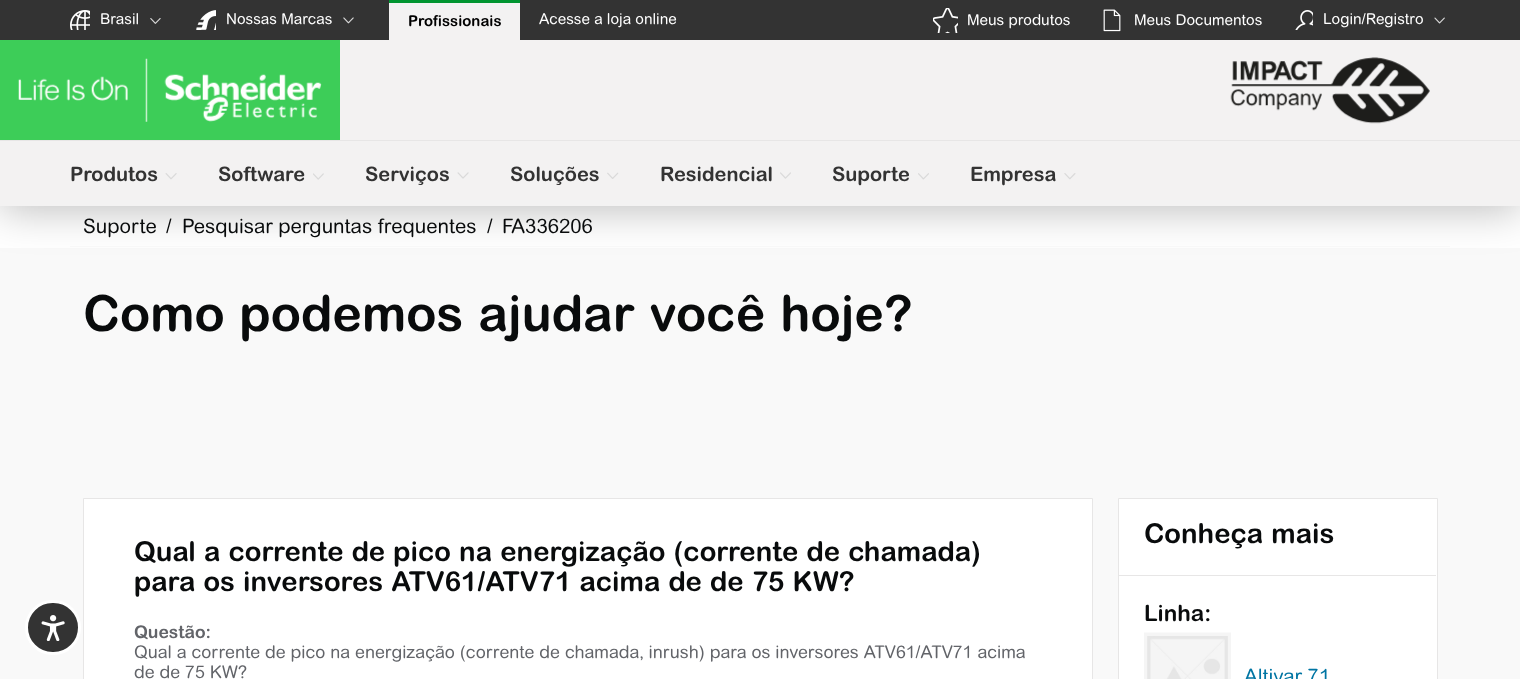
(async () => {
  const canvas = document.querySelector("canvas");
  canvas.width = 1520;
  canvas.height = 679;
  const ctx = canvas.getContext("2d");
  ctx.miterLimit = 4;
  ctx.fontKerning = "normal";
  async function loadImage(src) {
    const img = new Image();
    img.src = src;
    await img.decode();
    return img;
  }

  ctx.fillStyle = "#f9f9f9";
  ctx.fillRect(0, 0, 1520, 679);
  ctx.fillStyle = "#ffffff";
  ctx.fillRect(0, 206, 1520, 42);
  ctx.fillStyle = "#fafafa";
  ctx.fillRect(70, 246, 1380, 1);
  ctx.fillStyle = "rgba(0, 0, 0, 0.25)";
  ctx.filter = "blur(20px)";
  ctx.beginPath();
  ctx.rect(0, 45, 1520, 166);
  ctx.fill();
  ctx.filter = "none";
  ctx.fillStyle = "#333333";
  ctx.fillRect(0, 0, 1520, 40);
  ctx.drawImage(await loadImage("img/1.png"), 70, 10, 20, 20);
  ctx.drawImage(await loadImage("img/2.png"), 150, 18, 11, 6);
  ctx.drawImage(await loadImage("img/3.png"), 196, 10, 20, 20);
  ctx.drawImage(await loadImage("img/4.png"), 343, 17, 11, 7);
  ctx.fillStyle = "#f3f2f2";
  ctx.fillRect(389, 3, 131, 37);
  ctx.fillStyle = "#009530";
  ctx.fillRect(389, 0, 131, 3);
  ctx.drawImage(await loadImage("img/5.png"), 933, 8, 25, 25);
  ctx.drawImage(await loadImage("img/6.png"), 1103, 9, 18, 23);
  ctx.drawImage(await loadImage("img/7.png"), 1295, 10, 18, 20);
  ctx.drawImage(await loadImage("img/8.png"), 1434, 17, 11, 7);
  for (const [x, y, w, h, color] of [
    [0, 40, 1520, 166, "#f3f2f2"],
    [0, 140, 1520, 1, "#e7e6e6"],
    [0, 40, 340, 100, "#3dcd58"],
  ]) {
    ctx.fillStyle = color;
    ctx.fillRect(x, y, w, h);
  }
  ctx.drawImage(await loadImage("img/9.png"), 18, 58, 304, 64);
  ctx.drawImage(await loadImage("img/10.png"), 1230, 57, 200, 67);
  ctx.drawImage(await loadImage("img/11.png"), 165, 173, 12, 7);
  ctx.drawImage(await loadImage("img/12.png"), 313, 173, 11, 7);
  ctx.drawImage(await loadImage("img/13.png"), 457, 172, 12, 7);
  ctx.drawImage(await loadImage("img/14.png"), 607, 172, 12, 7);
  ctx.drawImage(await loadImage("img/15.png"), 780, 172, 11, 7);
  ctx.drawImage(await loadImage("img/16.png"), 918, 173, 11, 7);
  ctx.drawImage(await loadImage("img/17.png"), 1064, 173, 12, 7);
  ctx.fillStyle = "#333333";
  ctx.beginPath();
  ctx.roundRect(26.5, 601.5, 53, 52, 26);
  ctx.fill();
  ctx.strokeStyle = "#ffffff";
  ctx.lineWidth = 3;
  ctx.stroke();
  ctx.drawImage(await loadImage("img/18.png"), 41, 615, 24, 26);
  ctx.fillStyle = "#ffffff";
  ctx.beginPath();
  ctx.rect(83.5, 498.5, 1009, 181);
  ctx.fill();
  ctx.strokeStyle = "#e7e6e6";
  ctx.lineWidth = 1;
  ctx.stroke();
  ctx.beginPath();
  ctx.rect(1118.5, 498.5, 319, 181);
  ctx.fill();
  ctx.stroke();
  ctx.fillStyle = "#e7e6e6";
  ctx.fillRect(1119, 575, 317, 1);
  ctx.drawImage(await loadImage("img/19.png"), 1144, 632, 87, 47);
  ctx.font = "15px 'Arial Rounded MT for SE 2'";
  ctx.fillStyle = "#ffffff";
  ctx.fillText("Brasil", 100, 24);
  ctx.fillText("Nossas Marcas", 226, 24);
  ctx.font = "bold 15px 'Arial Rounded MT for SE 2'";
  ctx.fillStyle = "#000000";
  ctx.fillText("Profissionais", 408, 26);
  ctx.font = "15px 'Arial Rounded MT for SE 2'";
  ctx.fillStyle = "#ffffff";
  for (const [text, x, y] of [
    ["Acesse a loja online", 539, 24],
    ["Meus produtos", 967, 25],
    ["Meus Documentos", 1134, 25],
    ["Login/Registro", 1323, 24],
  ]) {
    ctx.fillText(text, x, y);
  }
  ctx.font = "bold 20px 'Arial Rounded MT for SE 2'";
  ctx.fillStyle = "#333333";
  for (const [text, x, y] of [
    ["Produtos", 70, 181],
    ["Software", 218, 181],
    ["Serviços", 365, 181],
    ["Soluções", 510, 181],
    ["Residencial", 660, 181],
    ["Suporte", 832, 181],
    ["Empresa", 970, 181],
  ]) {
    ctx.fillText(text, x, y);
  }
  ctx.font = "20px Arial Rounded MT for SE";
  ctx.fillStyle = "#090b0c";
  for (const [text, x, y] of [
    ["Suporte", 83, 233],
    ["/", 166, 233],
    ["Pesquisar perguntas frequentes", 182, 233],
    ["/", 487, 233],
    ["FA336206", 502, 233],
  ]) {
    ctx.fillText(text, x, y);
  }
  ctx.font = "bold 50px Arial Rounded MT for SE";
  ctx.fillText("Como podemos ajudar você hoje?", 83, 331);
  ctx.font = "bold 27.5px Arial Rounded MT for SE";
  ctx.fillText("Qual a corrente de pico na energização (corrente de chamada)", 134, 561);
  ctx.fillText("para os inversores ATV61/ATV71 acima de de 75 KW?", 134, 591);
  ctx.font = "bold 17.5px 'Arial Rounded MT for SE 2'";
  ctx.fillStyle = "#626469";
  ctx.fillText("Questão:", 134, 638);
  ctx.font = "17.5px 'Arial Rounded MT for SE 2'";
  ctx.fillText("Qual a corrente de pico na energização (corrente de chamada, inrush) para os inversores ATV61/ATV71 acima", 134, 658);
  ctx.fillText("de de 75 KW?", 134, 678);
  ctx.font = "bold 27.5px Arial Rounded MT for SE";
  ctx.fillStyle = "#090b0c";
  ctx.fillText("Conheça mais", 1144, 543);
  ctx.font = "bold 22.5px Arial Rounded MT for SE";
  ctx.fillText("Linha:", 1144, 621);
  ctx.font = "20px Arial Rounded MT for SE";
  ctx.fillStyle = "#0075a3";
  ctx.fillText("Altivar 71", 1244, 683);
})();
